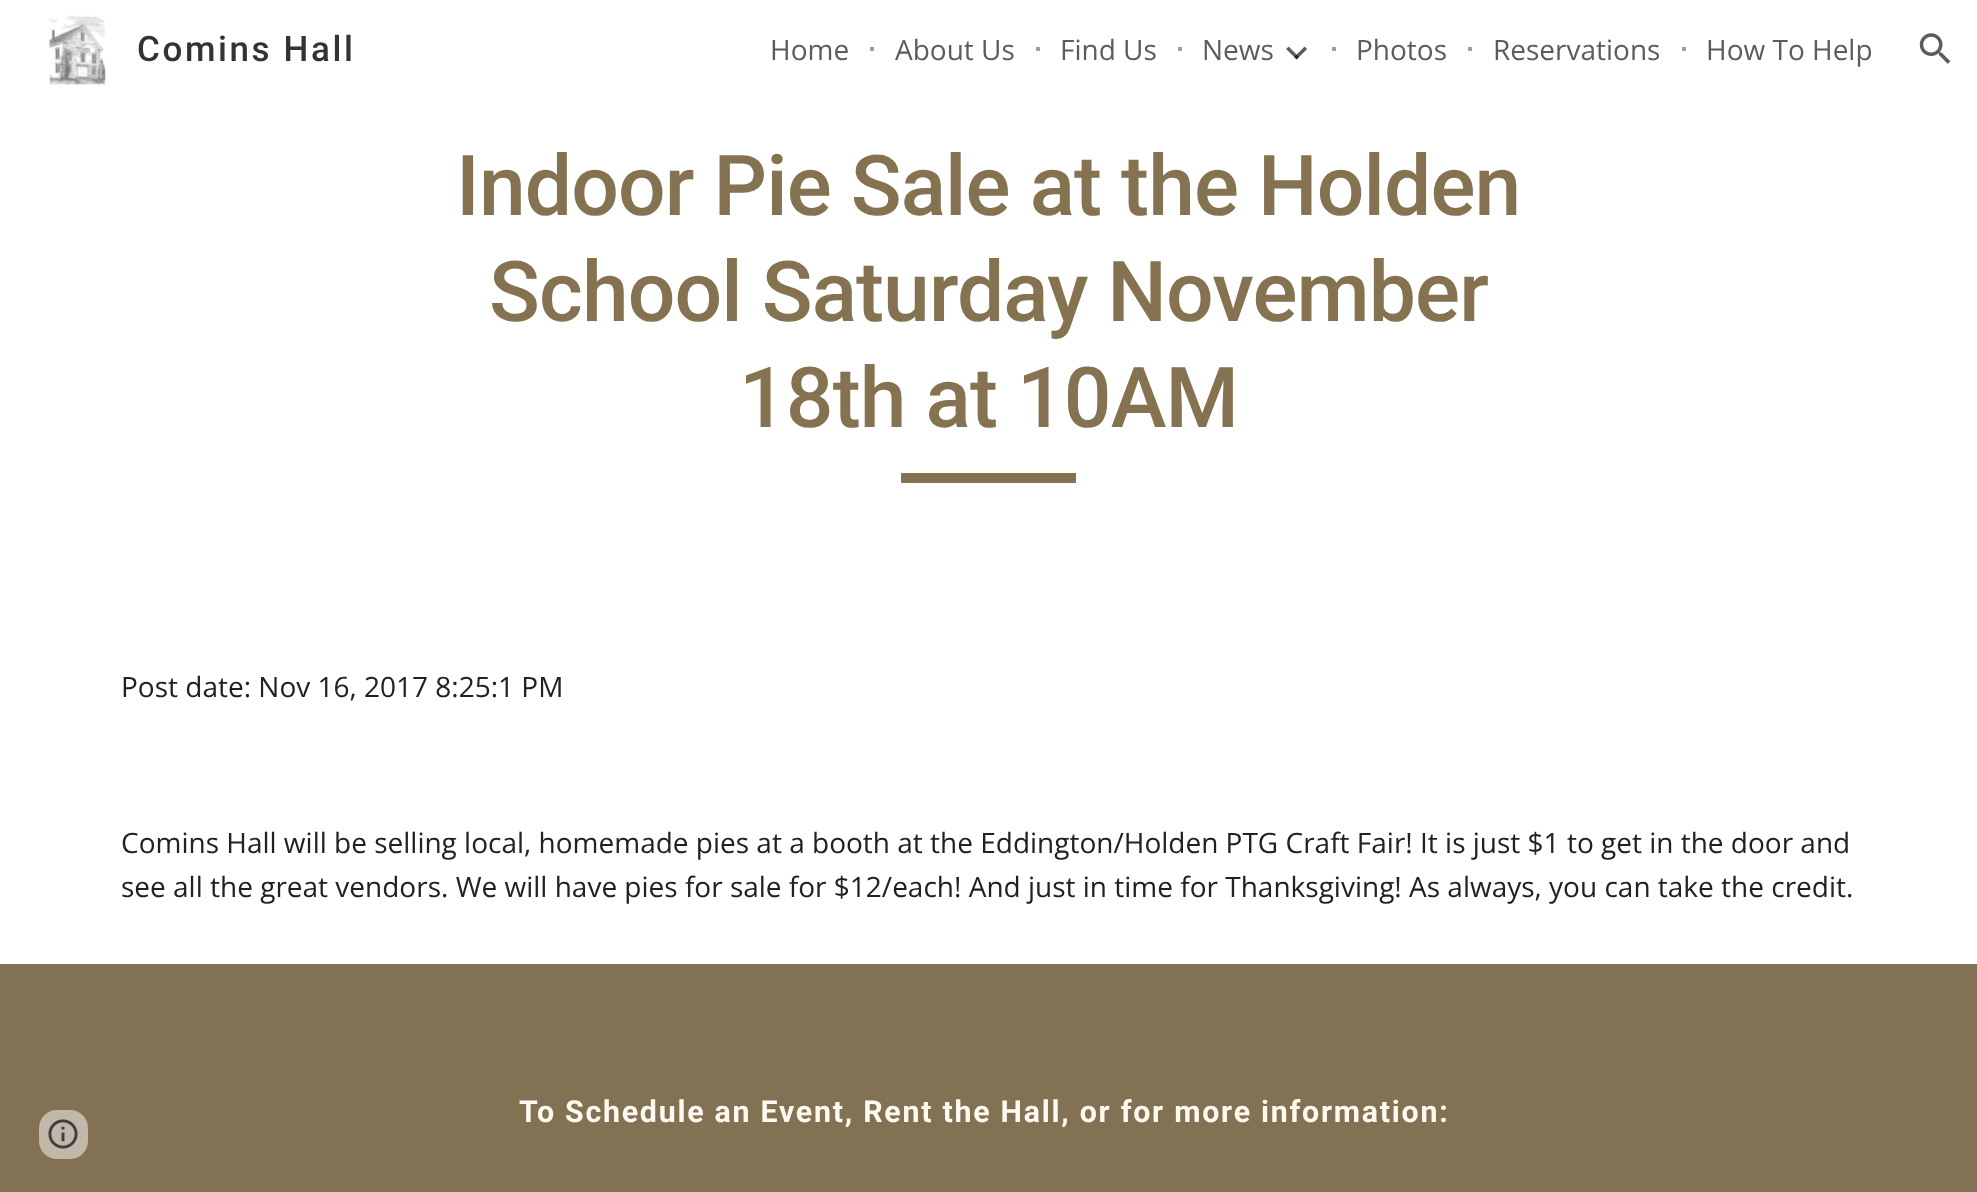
(async () => {
  const canvas = document.querySelector("canvas");
  canvas.width = 1977;
  canvas.height = 1192;
  const ctx = canvas.getContext("2d");
  ctx.miterLimit = 4;
  ctx.fontKerning = "normal";
  async function loadImage(src) {
    const img = new Image();
    img.src = src;
    await img.decode();
    return img;
  }

  ctx.fillStyle = "#ffffff";
  ctx.fillRect(0, 0, 1977, 1192);
  ctx.drawImage(await loadImage("img/1.png"), 48, 15, 58, 70);
  for (const [x, y, w, h, color] of [
    [870, 47, 4, 4, "#9e9e9e"],
    [1036, 47, 4, 4, "#9e9e9e"],
    [1178, 47, 4, 4, "#9e9e9e"],
  ]) {
    ctx.fillStyle = color;
    ctx.fillRect(x, y, w, h);
  }
  ctx.drawImage(await loadImage("img/2.png"), 1286, 46, 21, 14);
  for (const [x, y, w, h, color] of [
    [1332, 47, 4, 4, "#9e9e9e"],
    [1468, 47, 4, 4, "#9e9e9e"],
    [1682, 47, 4, 4, "#9e9e9e"],
  ]) {
    ctx.fillStyle = color;
    ctx.fillRect(x, y, w, h);
  }
  ctx.drawImage(await loadImage("img/3.png"), 1919, 33, 32, 31);
  ctx.fillStyle = "#857251";
  ctx.fillRect(901, 473, 175, 10);
  ctx.fillStyle = "#827153";
  ctx.fillRect(0, 964, 1977, 228);
  ctx.fillStyle = "#c1b8a9";
  ctx.beginPath();
  ctx.roundRect(39, 1110, 49, 49, 18);
  ctx.fill();
  ctx.drawImage(await loadImage("img/4.png"), 48, 1119, 30, 30);
  ctx.letterSpacing = "2.6px";
  ctx.font = "500 35px Roboto";
  ctx.fillStyle = "#333333";
  ctx.fillText("Comins Hall", 137, 61);
  ctx.letterSpacing = "0px";
  ctx.font = "28px Open Sans";
  ctx.fillStyle = "#5c5c5c";
  for (const [text, x, y] of [
    ["Home", 770, 60],
    ["About Us", 895, 60],
    ["Find Us", 1060, 60],
    ["News", 1202, 60],
    ["Photos", 1356, 60],
    ["Reservations", 1493, 60],
    ["How To Help", 1706, 60],
  ]) {
    ctx.fillText(text, x, y);
  }
  ctx.letterSpacing = "-0.9px";
  ctx.font = "500 84px Roboto";
  ctx.fillStyle = "#857251";
  for (const [text, x, y] of [
    ["Indoor Pie Sale at the Holden", 456, 215],
    ["School Saturday November", 489, 321],
    ["18th at 10AM", 739, 427],
  ]) {
    ctx.fillText(text, x, y);
  }
  ctx.letterSpacing = "0px";
  ctx.font = "28px Open Sans";
  ctx.fillStyle = "#212121";
  for (const [text, x, y] of [
    ["Post date: Nov 16, 2017 8:25:1 PM", 121, 697],
    ["Comins Hall will be selling local, homemade pies at a booth at the Eddington/Holden PTG Craft Fair! It is just $1 to get in the door and", 121, 853],
    ["see all the great vendors. We will have pies for sale for $12/each! And just in time for Thanksgiving! As always, you can take the credit.", 121, 897],
  ]) {
    ctx.fillText(text, x, y);
  }
  ctx.letterSpacing = "1.75px";
  ctx.font = "bold 30.3px Roboto";
  ctx.fillStyle = "#fffaf1";
  ctx.fillText("To Schedule an Event, Rent the Hall, or for more information:", 519, 1122);
})();
